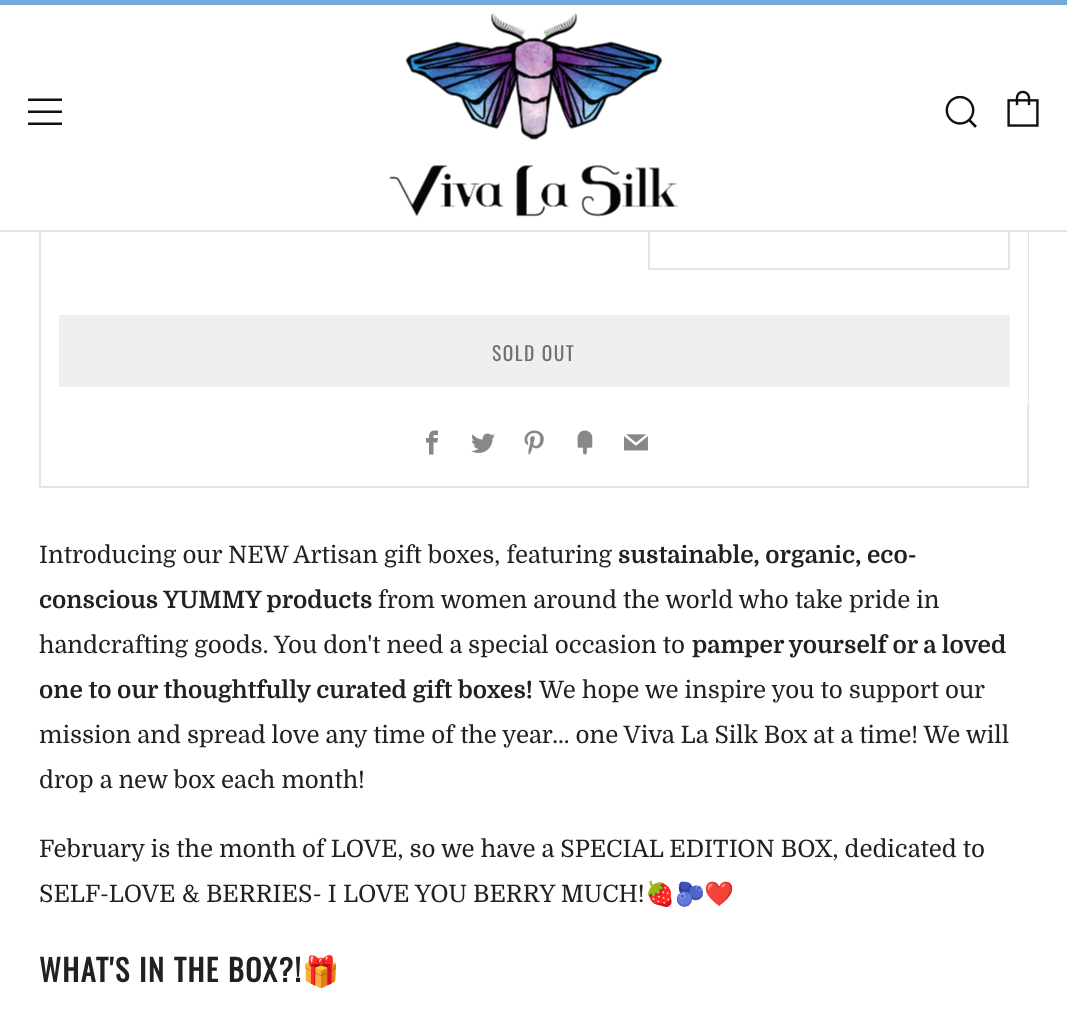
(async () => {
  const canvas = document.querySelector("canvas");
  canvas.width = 1067;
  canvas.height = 1034;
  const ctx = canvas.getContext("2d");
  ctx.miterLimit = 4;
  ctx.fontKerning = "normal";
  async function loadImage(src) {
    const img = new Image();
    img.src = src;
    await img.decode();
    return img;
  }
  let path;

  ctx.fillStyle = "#ffffff";
  ctx.fillRect(0, 0, 1067, 1034);
  ctx.strokeStyle = "#e4e4e4";
  ctx.lineWidth = 2;
  ctx.strokeRect(40, 79, 988, 408);
  ctx.strokeRect(649, 199, 360, 70);
  for (const [x, y, w, h, color] of [
    [39, 78, 990, 152, "#ffffff"],
    [0, 230, 1067, 2, "#e4e4e4"],
    [0, 0, 1067, 5, "#73a9d9"],
  ]) {
    ctx.fillStyle = color;
    ctx.fillRect(x, y, w, h);
  }
  ctx.fillStyle = "#111111";
  path = new Path2D("M28 101H62V98.5H28ZM28 125H62V122.5H28ZM28 113H62V110.5H28Z");
  ctx.fill(path);
  ctx.drawImage(await loadImage("img/1.png"), 389, 13, 290, 204);
  ctx.drawImage(await loadImage("img/2.png"), 945, 95, 32, 33);
  ctx.drawImage(await loadImage("img/3.png"), 1007, 90, 32, 37);
  ctx.fillStyle = "#ffffff";
  ctx.fillRect(1027, 232, 1, 173);
  ctx.fillStyle = "#efefef";
  ctx.fillRect(59, 315, 951, 72);
  ctx.drawImage(await loadImage("img/4.png"), 426, 430, 12, 25);
  ctx.drawImage(await loadImage("img/5.png"), 471, 433, 24, 20);
  ctx.drawImage(await loadImage("img/6.png"), 524, 430, 20, 25);
  ctx.drawImage(await loadImage("img/7.png"), 577, 430, 16, 25);
  ctx.drawImage(await loadImage("img/8.png"), 624, 434, 24, 17);
  ctx.letterSpacing = "1.5px";
  ctx.font = "19.5px Oswald";
  ctx.fillStyle = "#707070";
  ctx.fillText("SOLD OUT", 492, 361);
  ctx.letterSpacing = "0px";
  ctx.font = "24px Domine";
  ctx.fillStyle = "#212121";
  ctx.fillText("Introducing our NEW Artisan gift boxes, featuring", 39, 563);
  ctx.font = "bold 24px Domine";
  ctx.fillText("sustainable, organic, eco-", 618, 563);
  ctx.fillText("conscious YUMMY products", 39, 608);
  ctx.font = "24px Domine";
  ctx.fillText("from women around the world who take pride in", 378, 608);
  ctx.fillText("handcrafting goods. You don't need a special occasion to", 39, 653);
  ctx.font = "bold 24px Domine";
  ctx.fillText("pamper yourself or a loved", 692, 653);
  ctx.fillText("one to our thoughtfully curated gift boxes!", 39, 698);
  ctx.font = "24px Domine";
  for (const [text, x, y] of [
    ["We hope we inspire you to support our", 539, 698],
    ["mission and spread love any time of the year... one Viva La Silk Box at a time! We will", 39, 743],
    ["drop a new box each month!", 39, 788],
    ["February is the month of LOVE, so we have a SPECIAL EDITION BOX, dedicated to", 39, 857],
    ["SELF-LOVE & BERRIES- I LOVE YOU BERRY MUCH!", 39, 902],
  ]) {
    ctx.fillText(text, x, y);
  }
  ctx.font = "24px Noto Color Emoji";
  ctx.fillText("🍓🫐❤️", 645, 902);
  ctx.letterSpacing = "1.5px";
  ctx.font = "bold 30px Oswald";
  ctx.fillText("WHAT'S IN THE BOX?!", 39, 982);
  ctx.font = "bold 30px Noto Color Emoji";
  ctx.fillText("🎁", 302, 982);
})();
